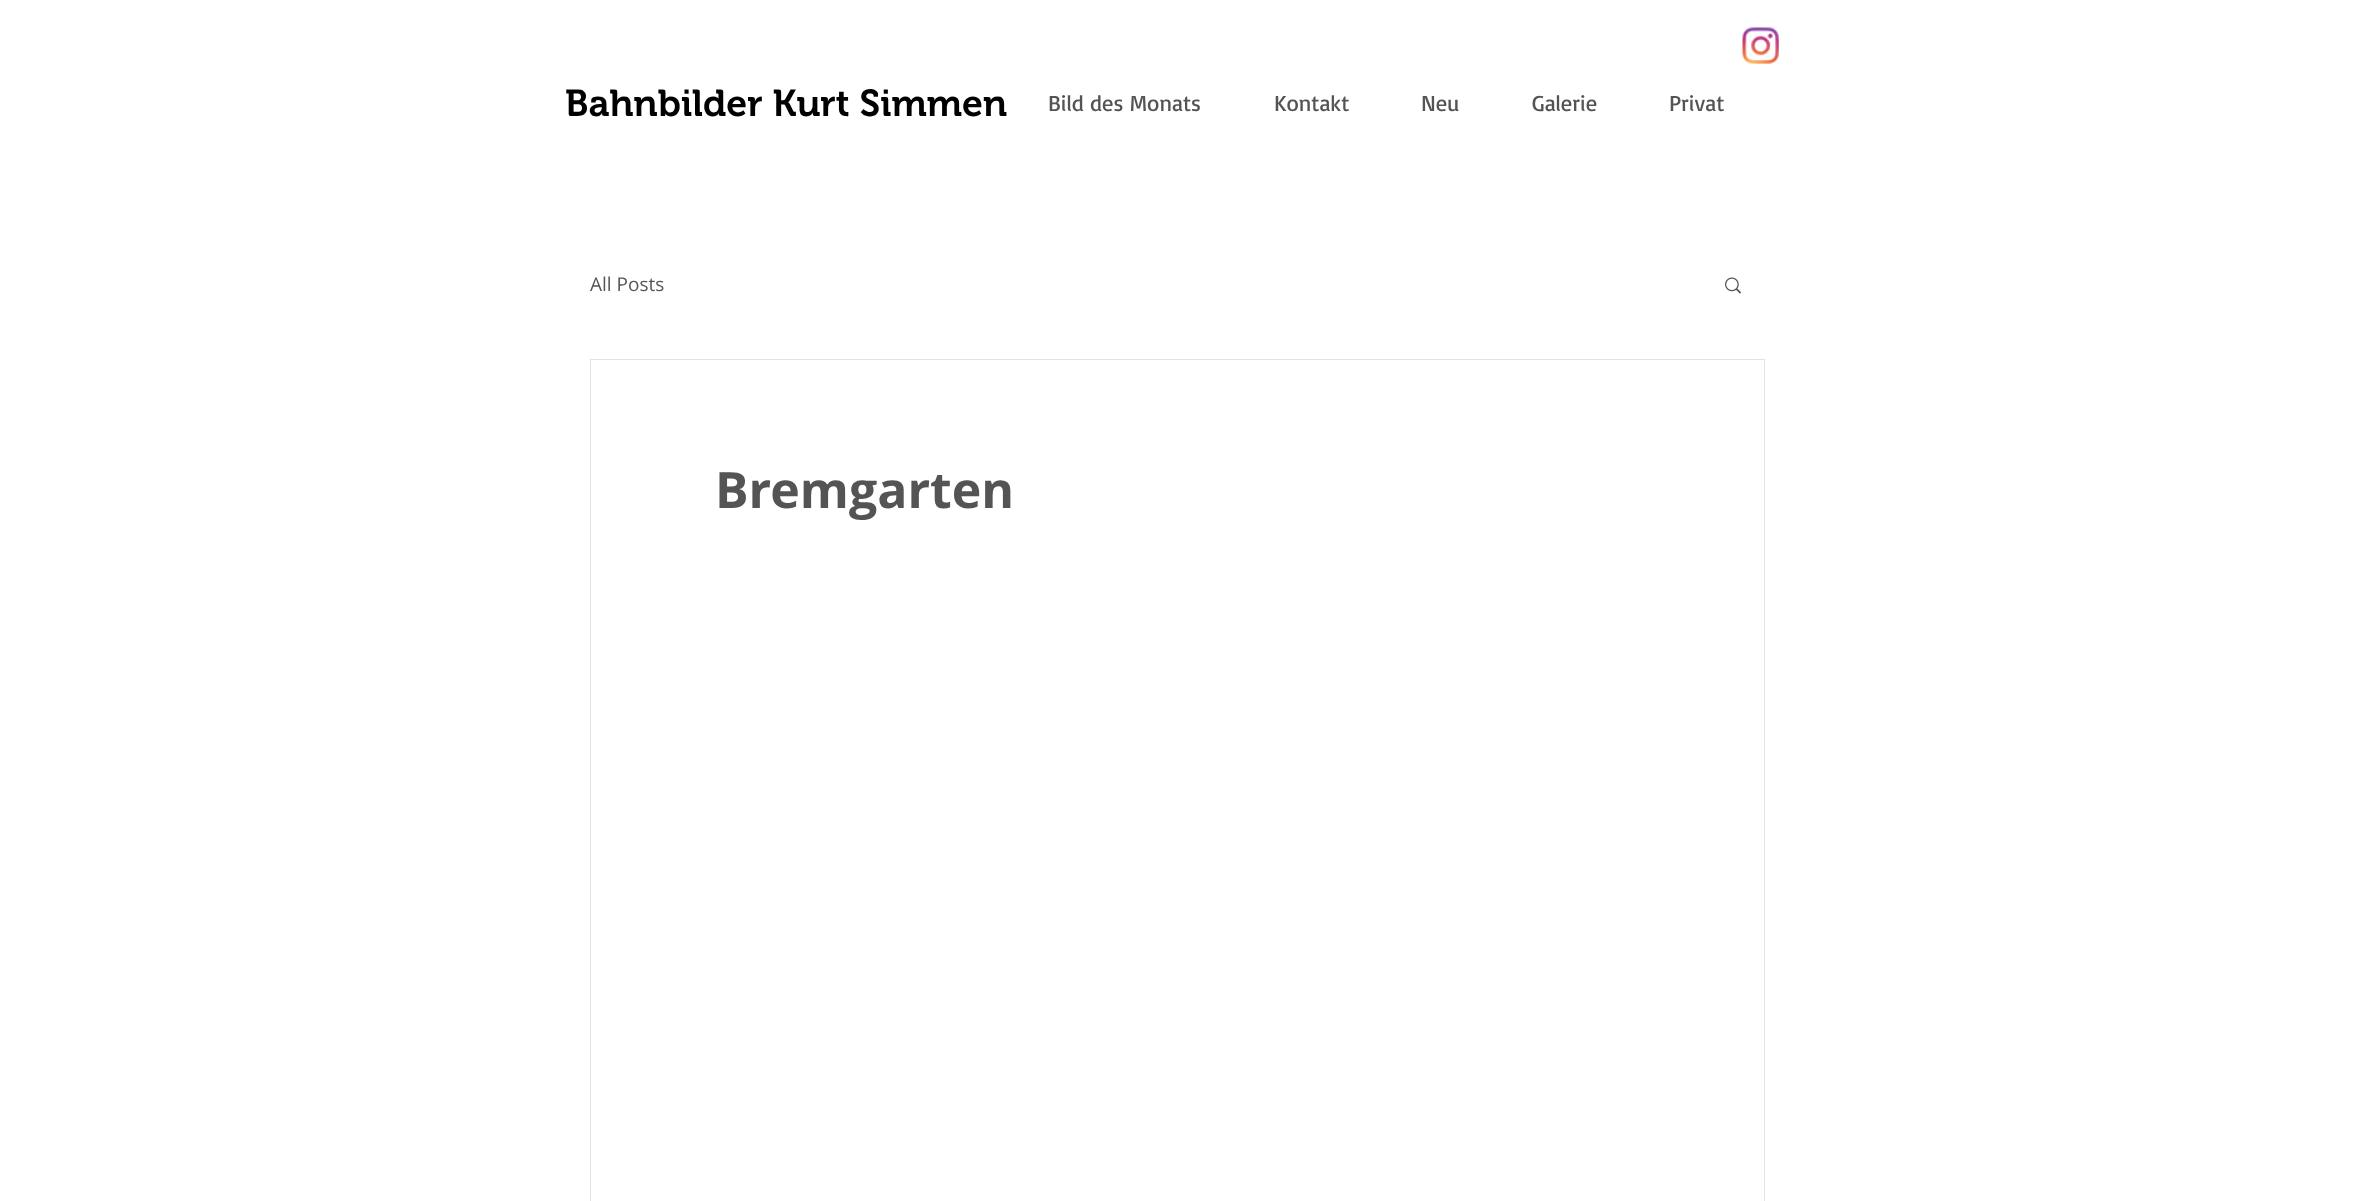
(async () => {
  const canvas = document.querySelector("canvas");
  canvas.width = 2355;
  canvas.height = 1201;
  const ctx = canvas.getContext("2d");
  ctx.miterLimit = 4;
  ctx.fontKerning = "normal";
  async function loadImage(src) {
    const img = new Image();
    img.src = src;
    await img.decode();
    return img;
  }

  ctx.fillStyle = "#ffffff";
  ctx.fillRect(0, 0, 2355, 1201);
  ctx.drawImage(await loadImage("img/1.png"), 1742, 27, 37, 37);
  ctx.drawImage(await loadImage("img/2.png"), 1725, 277, 17, 17);
  ctx.strokeStyle = "#e3e3e3";
  ctx.strokeRect(590.5, 359.5, 1174, 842);
  ctx.font = "600 37.5px 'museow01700'";
  ctx.fillStyle = "#000000";
  ctx.fillText("Bahnbilder Kurt Simmen", 565, 116);
  ctx.font = "22.5px Basic";
  ctx.fillStyle = "#545454";
  for (const [text, x, y] of [
    ["Bild des Monats", 1048, 111],
    ["Kontakt", 1274, 111],
    ["Neu", 1421, 111],
    ["Galerie", 1532, 111],
    ["Privat", 1669, 111],
  ]) {
    ctx.fillText(text, x, y);
  }
  ctx.font = "19px Open Sans";
  ctx.fillText("All Posts", 590, 291);
  ctx.font = "bold 50px Open Sans";
  ctx.fillText("Bremgarten", 715, 508);
})();
